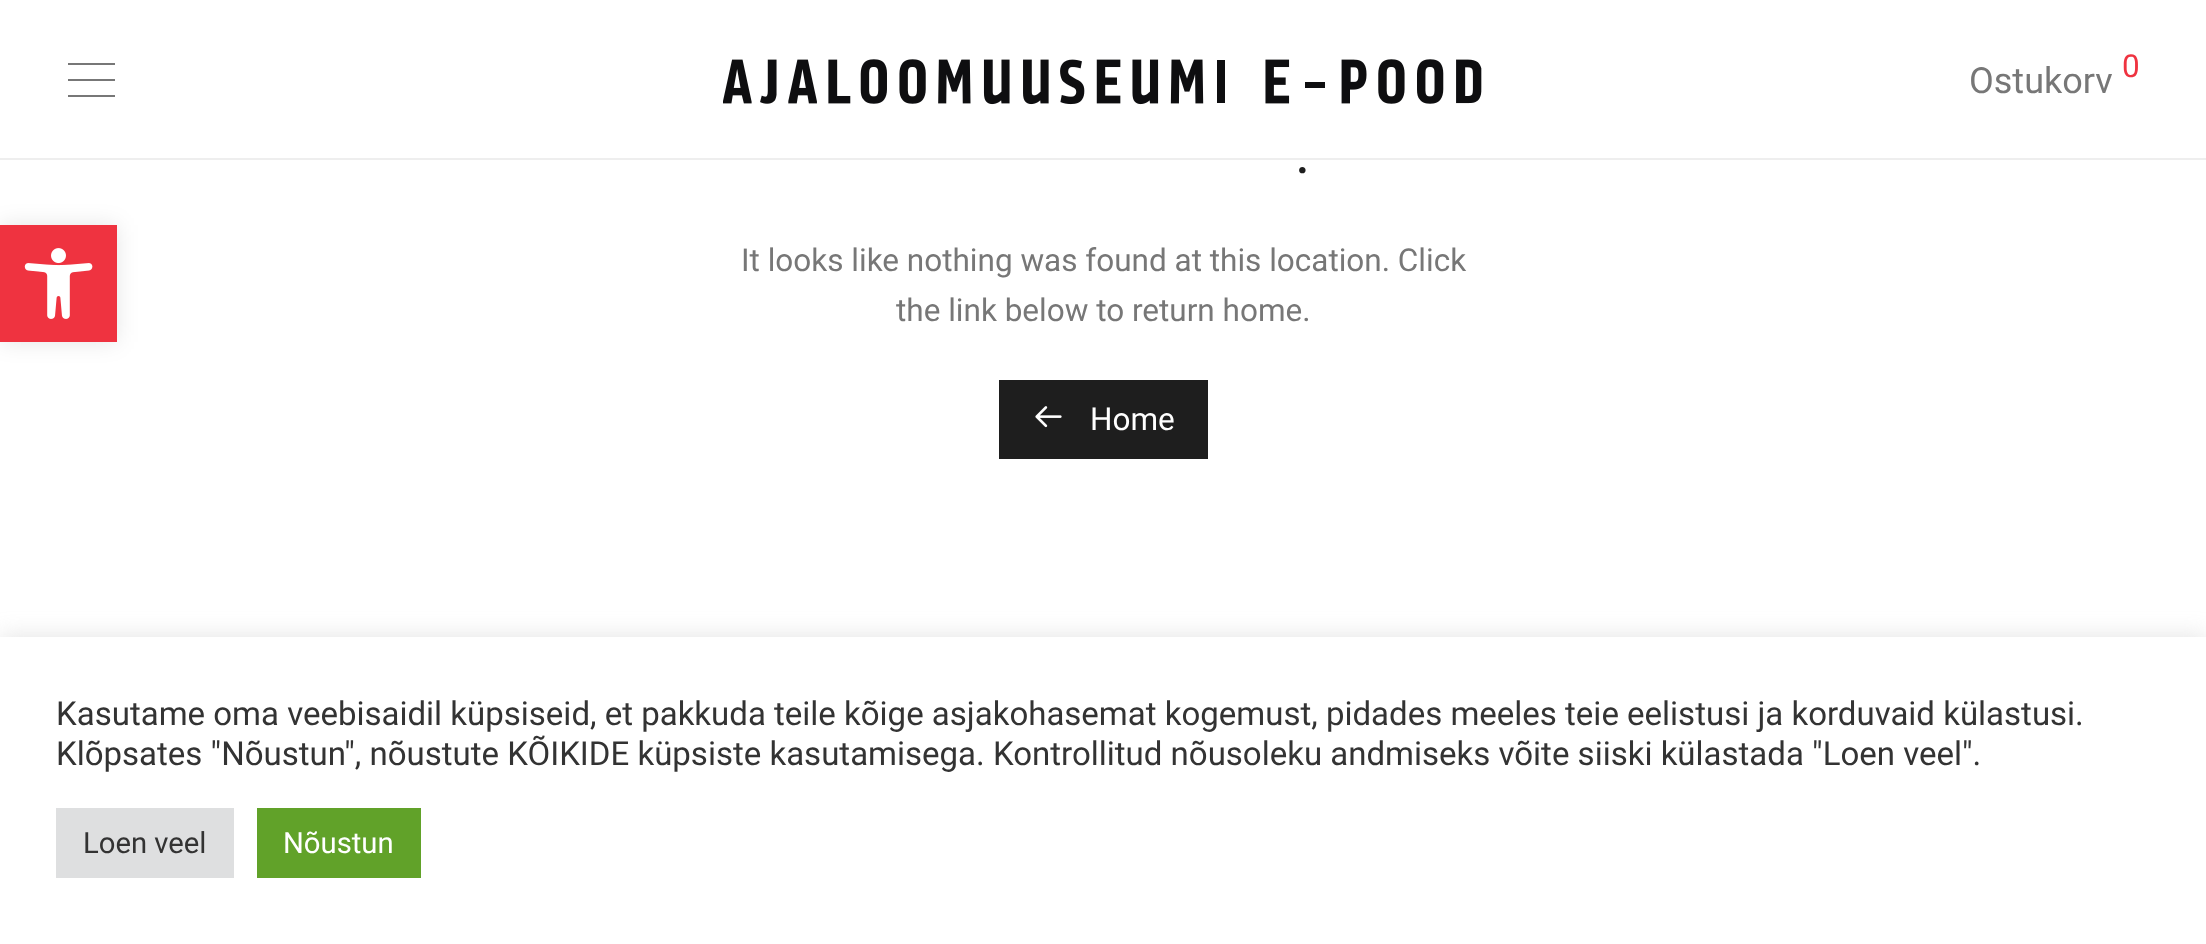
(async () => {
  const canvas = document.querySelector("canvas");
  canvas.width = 2206;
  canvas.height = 944;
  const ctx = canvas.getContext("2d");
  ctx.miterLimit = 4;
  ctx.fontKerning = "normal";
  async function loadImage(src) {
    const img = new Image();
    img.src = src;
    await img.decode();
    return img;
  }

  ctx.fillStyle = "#ffffff";
  ctx.fillRect(0, 0, 2206, 944);
  for (const [x, y, w, h, color] of [
    [0, 158, 2206, 2, "#eeeeee"],
    [68, 63, 47, 2, "#777777"],
    [68, 79, 47, 2, "#777777"],
    [68, 95, 47, 2, "#777777"],
  ]) {
    ctx.fillStyle = color;
    ctx.fillRect(x, y, w, h);
  }
  ctx.drawImage(await loadImage("img/1.png"), 723, 59, 759, 46);
  ctx.fillStyle = "#1e1e1e";
  ctx.fillRect(999, 380, 209, 79);
  ctx.drawImage(await loadImage("img/2.png"), 1035, 406, 27, 22);
  ctx.fillStyle = "rgba(172, 171, 171, 0.3)";
  ctx.filter = "blur(11px)";
  ctx.beginPath();
  ctx.rect(0, 635, 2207, 308);
  ctx.fill();
  ctx.filter = "none";
  for (const [x, y, w, h, color] of [
    [0, 637, 2206, 307, "#ffffff"],
    [56, 808, 178, 70, "#dedfe0"],
    [257, 808, 164, 70, "#61a229"],
  ]) {
    ctx.fillStyle = color;
    ctx.fillRect(x, y, w, h);
  }
  ctx.fillStyle = "rgba(0, 0, 0, 0.1)";
  ctx.filter = "blur(11px)";
  ctx.beginPath();
  ctx.rect(0, 225, 117, 117);
  ctx.fill();
  ctx.filter = "none";
  ctx.fillStyle = "#ef3340";
  ctx.fillRect(0, 225, 117, 117);
  ctx.drawImage(await loadImage("img/3.png"), 24, 248, 69, 71);
  ctx.font = "36px Roboto";
  ctx.fillStyle = "#777777";
  ctx.fillText("Ostukorv", 1969, 93);
  ctx.font = "31.5px Roboto";
  ctx.fillStyle = "#ef3340";
  ctx.fillText("0", 2122, 77);
  ctx.font = "58px Roboto";
  ctx.fillStyle = "#1e1e1e";
  ctx.fillText(".", 1295, 173);
  ctx.font = "31.5px Roboto";
  ctx.fillStyle = "#777777";
  ctx.fillText("It looks like nothing was found at this location. Click", 741, 271);
  ctx.fillText("the link below to return home.", 896, 321);
  ctx.fillStyle = "#ffffff";
  ctx.fillText("Home", 1090, 430);
  ctx.font = "33px Roboto";
  ctx.fillStyle = "#333333";
  ctx.fillText("Kasutame oma veebisaidil küpsiseid, et pakkuda teile kõige asjakohasemat kogemust, pidades meeles teie eelistusi ja korduvaid külastusi.", 56, 725);
  ctx.fillText("Klõpsates \"Nõustun\", nõustute KÕIKIDE küpsiste kasutamisega. Kontrollitud nõusoleku andmiseks võite siiski külastada \"Loen veel\".", 56, 765);
  ctx.font = "29.25px Roboto";
  ctx.fillText("Loen veel", 83, 853);
  ctx.fillStyle = "#ffffff";
  ctx.fillText("Nõustun", 283, 853);
})();
